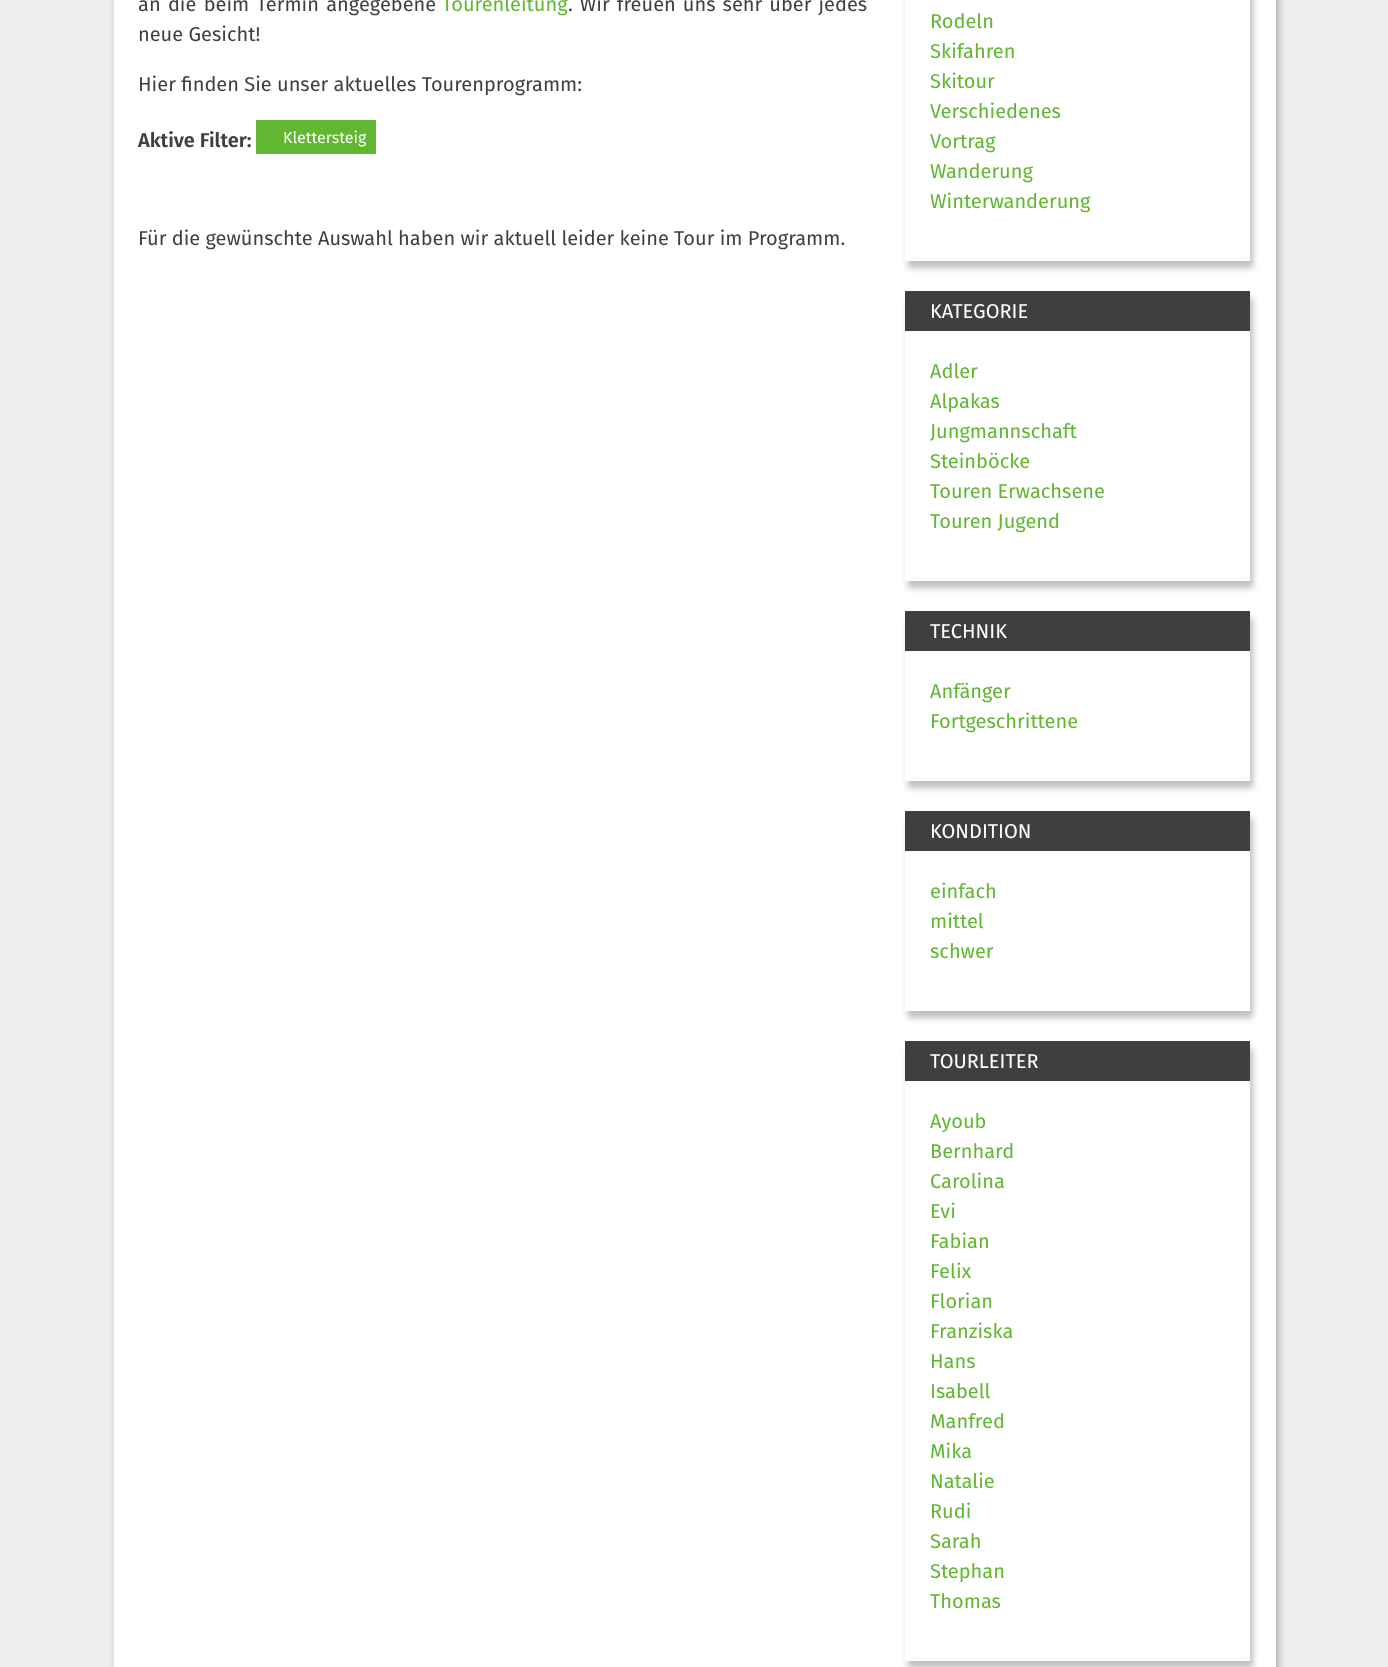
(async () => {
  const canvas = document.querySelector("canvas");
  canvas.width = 1388;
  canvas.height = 1667;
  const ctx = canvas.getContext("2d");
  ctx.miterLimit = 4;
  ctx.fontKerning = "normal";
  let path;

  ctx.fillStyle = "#ededed";
  ctx.fillRect(0, 0, 1388, 1667);
  ctx.fillStyle = "rgba(0, 0, 0, 0.25)";
  ctx.filter = "blur(3px)";
  ctx.beginPath();
  ctx.rect(116, -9, 1163, 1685);
  ctx.fill();
  ctx.filter = "none";
  ctx.fillStyle = "#ffffff";
  ctx.fillRect(114, 0, 1162, 1667);
  ctx.fillStyle = "#61b732";
  ctx.fillRect(256, 120, 120, 34);
  ctx.save();
  path = new Path2D("M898 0H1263V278H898ZM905-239H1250V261H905Z");
  ctx.clip(path, "evenodd");
  ctx.fillStyle = "rgba(0, 0, 0, 0.25)";
  ctx.filter = "blur(3px)";
  ctx.beginPath();
  ctx.rect(908, -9, 345, 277);
  ctx.fill();
  ctx.filter = "none";
  ctx.restore();
  ctx.save();
  path = new Path2D("M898 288H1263V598H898ZM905 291H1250V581H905Z");
  ctx.clip(path, "evenodd");
  ctx.fillStyle = "rgba(0, 0, 0, 0.25)";
  ctx.filter = "blur(3px)";
  ctx.beginPath();
  ctx.rect(908, 298, 345, 290);
  ctx.fill();
  ctx.filter = "none";
  ctx.restore();
  ctx.fillStyle = "#3f3f3f";
  ctx.fillRect(905, 291, 345, 40);
  ctx.save();
  path = new Path2D("M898 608H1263V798H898ZM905 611H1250V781H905Z");
  ctx.clip(path, "evenodd");
  ctx.fillStyle = "rgba(0, 0, 0, 0.25)";
  ctx.filter = "blur(3px)";
  ctx.beginPath();
  ctx.rect(908, 618, 345, 170);
  ctx.fill();
  ctx.filter = "none";
  ctx.restore();
  ctx.fillRect(905, 611, 345, 40);
  ctx.save();
  path = new Path2D("M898 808H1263V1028H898ZM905 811H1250V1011H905Z");
  ctx.clip(path, "evenodd");
  ctx.fillStyle = "rgba(0, 0, 0, 0.25)";
  ctx.filter = "blur(3px)";
  ctx.beginPath();
  ctx.rect(908, 818, 345, 200);
  ctx.fill();
  ctx.filter = "none";
  ctx.restore();
  ctx.fillRect(905, 811, 345, 40);
  ctx.save();
  path = new Path2D("M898 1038H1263V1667H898ZM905 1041H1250V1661H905Z");
  ctx.clip(path, "evenodd");
  ctx.fillStyle = "rgba(0, 0, 0, 0.25)";
  ctx.filter = "blur(3px)";
  ctx.beginPath();
  ctx.rect(908, 1048, 345, 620);
  ctx.fill();
  ctx.filter = "none";
  ctx.restore();
  ctx.fillRect(905, 1041, 345, 40);
  ctx.wordSpacing = "2px";
  ctx.font = "20px Fira Sans";
  ctx.fillText("an die beim Termin angegebene", 138, 11);
  ctx.wordSpacing = "0px";
  ctx.fillStyle = "#61b732";
  ctx.fillText("Tourenleitung", 442, 11);
  ctx.wordSpacing = "1.75px";
  ctx.fillStyle = "#3f3f3f";
  ctx.fillText(". Wir freuen uns sehr über jedes", 568, 11);
  ctx.wordSpacing = "0px";
  ctx.fillText("neue Gesicht!", 138, 41);
  ctx.fillText("Hier finden Sie unser aktuelles Tourenprogramm:", 138, 91);
  ctx.font = "600 20px Fira Sans";
  ctx.fillText("Aktive Filter:", 138, 147);
  ctx.font = "16px Fira Sans";
  ctx.fillStyle = "#ffffff";
  ctx.fillText("Klettersteig", 283, 143);
  ctx.font = "20px Fira Sans";
  ctx.fillStyle = "#3f3f3f";
  ctx.fillText("Für die gewünschte Auswahl haben wir aktuell leider keine Tour im Programm.", 138, 245);
  ctx.fillStyle = "#61b732";
  for (const [text, x, y] of [
    ["Rodeln", 930, 28],
    ["Skifahren", 930, 58],
    ["Skitour", 930, 88],
    ["Verschiedenes", 930, 118],
    ["Vortrag", 930, 148],
    ["Wanderung", 930, 178],
    ["Winterwanderung", 930, 208],
  ]) {
    ctx.fillText(text, x, y);
  }
  ctx.fillStyle = "#ffffff";
  ctx.fillText("KATEGORIE", 930, 318);
  ctx.fillStyle = "#61b732";
  for (const [text, x, y] of [
    ["Adler", 930, 378],
    ["Alpakas", 930, 408],
    ["Jungmannschaft", 930, 438],
    ["Steinböcke", 930, 468],
    ["Touren Erwachsene", 930, 498],
    ["Touren Jugend", 930, 528],
  ]) {
    ctx.fillText(text, x, y);
  }
  ctx.fillStyle = "#ffffff";
  ctx.fillText("TECHNIK", 930, 638);
  ctx.fillStyle = "#61b732";
  ctx.fillText("Anfänger", 930, 698);
  ctx.fillText("Fortgeschrittene", 930, 728);
  ctx.fillStyle = "#ffffff";
  ctx.fillText("KONDITION", 930, 838);
  ctx.fillStyle = "#61b732";
  for (const [text, x, y] of [
    ["einfach", 930, 898],
    ["mittel", 930, 928],
    ["schwer", 930, 958],
  ]) {
    ctx.fillText(text, x, y);
  }
  ctx.fillStyle = "#ffffff";
  ctx.fillText("TOURLEITER", 930, 1068);
  ctx.fillStyle = "#61b732";
  for (const [text, x, y] of [
    ["Ayoub", 930, 1128],
    ["Bernhard", 930, 1158],
    ["Carolina", 930, 1188],
    ["Evi", 930, 1218],
    ["Fabian", 930, 1248],
    ["Felix", 930, 1278],
    ["Florian", 930, 1308],
    ["Franziska", 930, 1338],
    ["Hans", 930, 1368],
    ["Isabell", 930, 1398],
    ["Manfred", 930, 1428],
    ["Mika", 930, 1458],
    ["Natalie", 930, 1488],
    ["Rudi", 930, 1518],
    ["Sarah", 930, 1548],
    ["Stephan", 930, 1578],
    ["Thomas", 930, 1608],
  ]) {
    ctx.fillText(text, x, y);
  }
})();
